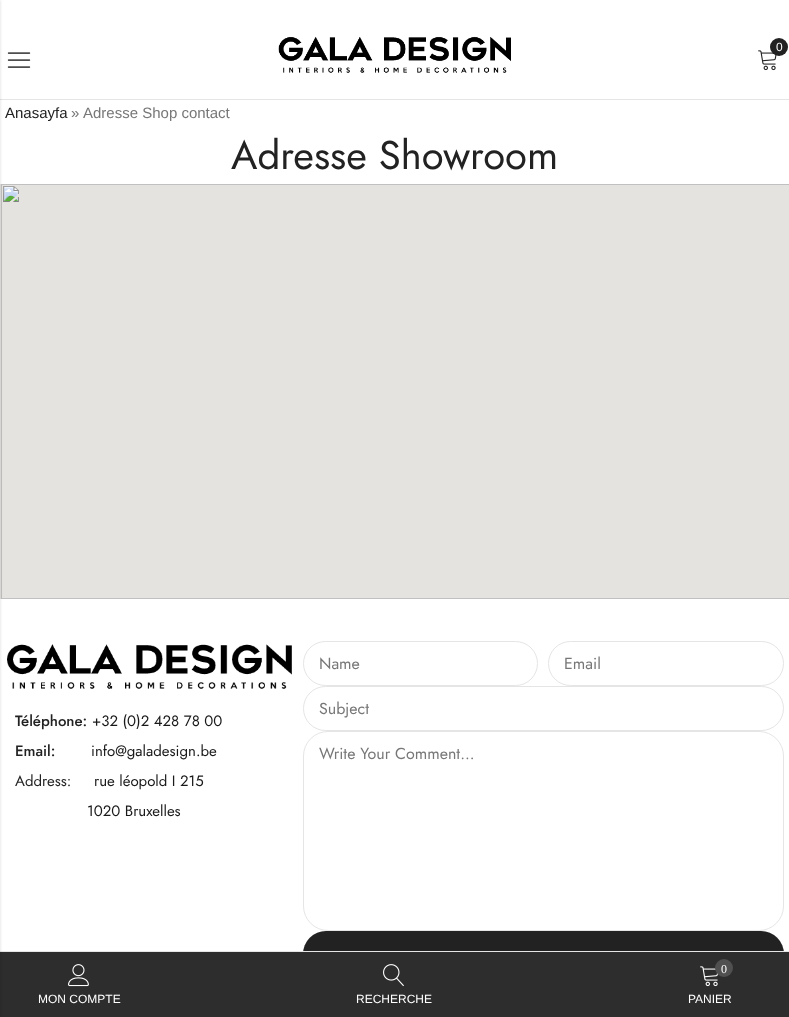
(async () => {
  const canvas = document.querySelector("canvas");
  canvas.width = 789;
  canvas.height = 1017;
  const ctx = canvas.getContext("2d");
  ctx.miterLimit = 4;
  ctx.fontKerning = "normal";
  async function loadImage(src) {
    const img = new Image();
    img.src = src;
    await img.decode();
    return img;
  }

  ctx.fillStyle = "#ffffff";
  ctx.fillRect(0, 0, 789, 1017);
  ctx.fillStyle = "#e5e5e5";
  ctx.fillRect(0, 99, 789, 1);
  ctx.drawImage(await loadImage("img/4.png"), 0, 184, 789, 415);
  ctx.fillStyle = "#222222";
  ctx.beginPath();
  ctx.roundRect(303, 931, 481, 46, 23);
  ctx.fill();
  ctx.fillStyle = "#2d2d2d";
  ctx.fillRect(0, 952, 789, 65);
  ctx.fillStyle = "#e5e5e5";
  ctx.fillRect(0, 951, 789, 1);
  ctx.fillStyle = "rgba(0, 0, 0, 0.15)";
  ctx.filter = "blur(1.5px)";
  ctx.beginPath();
  ctx.rect(-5, 0, 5, 1017);
  ctx.fill();
  ctx.filter = "none";
  ctx.drawImage(await loadImage("img/1.png"), 278, 36, 233, 37);
  ctx.drawImage(await loadImage("img/2.png"), 758, 50, 19, 21);
  ctx.fillStyle = "#222222";
  ctx.beginPath();
  ctx.arc(779, 47, 9, 0, Math.PI * 2);
  ctx.fill();
  ctx.drawImage(await loadImage("img/3.png"), 7, 52, 24, 16);
  ctx.drawImage(await loadImage("img/5.png"), 7, 644, 285, 45);
  ctx.beginPath();
  ctx.roundRect(303.5, 641.5, 234, 44, 22);
  ctx.strokeStyle = "#e5e5e5";
  ctx.stroke();
  ctx.beginPath();
  ctx.roundRect(548.5, 641.5, 235, 44, 22);
  ctx.stroke();
  ctx.beginPath();
  ctx.roundRect(303.5, 686.5, 480, 44, 22);
  ctx.stroke();
  ctx.beginPath();
  ctx.roundRect(303.5, 731.5, 480, 199, 24.5);
  ctx.stroke();
  ctx.drawImage(await loadImage("img/6.png"), 68, 964, 21, 23);
  ctx.drawImage(await loadImage("img/7.png"), 383, 964, 21, 23);
  ctx.drawImage(await loadImage("img/8.png"), 700, 966, 18, 21);
  ctx.fillStyle = "#505050";
  ctx.beginPath();
  ctx.arc(724, 968, 9, 0, Math.PI * 2);
  ctx.fill();
  ctx.font = "12px Liberation Sans";
  ctx.fillStyle = "#ffffff";
  ctx.fillText("0", 776, 51);
  ctx.font = "15px Liberation Sans";
  ctx.fillStyle = "#222222";
  ctx.fillText("Anasayfa", 5, 118);
  ctx.fillStyle = "#777777";
  ctx.fillText("»", 71, 118);
  ctx.fillText("Adresse Shop contact", 83, 118);
  ctx.font = "40px Jost";
  ctx.fillStyle = "#222222";
  ctx.fillText("Adresse Showroom", 231, 169);
  ctx.font = "500 15px Jost";
  ctx.fillText("Téléphone:", 15, 726);
  ctx.font = "15px Jost";
  ctx.fillStyle = "#1a1919";
  ctx.fillText("+32 (0)2 428 78 00", 92, 726);
  ctx.font = "500 15px Jost";
  ctx.fillStyle = "#222222";
  ctx.fillText("Email:", 15, 756);
  ctx.font = "15px Jost";
  ctx.fillStyle = "#1a1919";
  ctx.fillText("info@galadesign.be", 91, 756);
  ctx.fillStyle = "#222222";
  ctx.fillText("Address:", 15, 786);
  ctx.fillStyle = "#1a1919";
  ctx.fillText("rue léopold I 215", 94, 786);
  ctx.fillText("1020 Bruxelles", 87, 816);
  ctx.font = "16px Jost";
  ctx.fillStyle = "#777777";
  for (const [text, x, y] of [
    ["Name", 319, 669],
    ["Email", 564, 669],
    ["Subject", 319, 714],
    ["Write Your Comment...", 319, 759],
  ]) {
    ctx.fillText(text, x, y);
  }
  ctx.font = "12px Liberation Sans";
  ctx.fillStyle = "#ffffff";
  ctx.fillText("MON COMPTE", 38, 1003);
  ctx.fillText("RECHERCHE", 356, 1003);
  ctx.font = "12px Liberation Serif";
  ctx.fillText("0", 721, 973);
  ctx.font = "12px Liberation Sans";
  ctx.fillText("PANIER", 688, 1003);
})();
